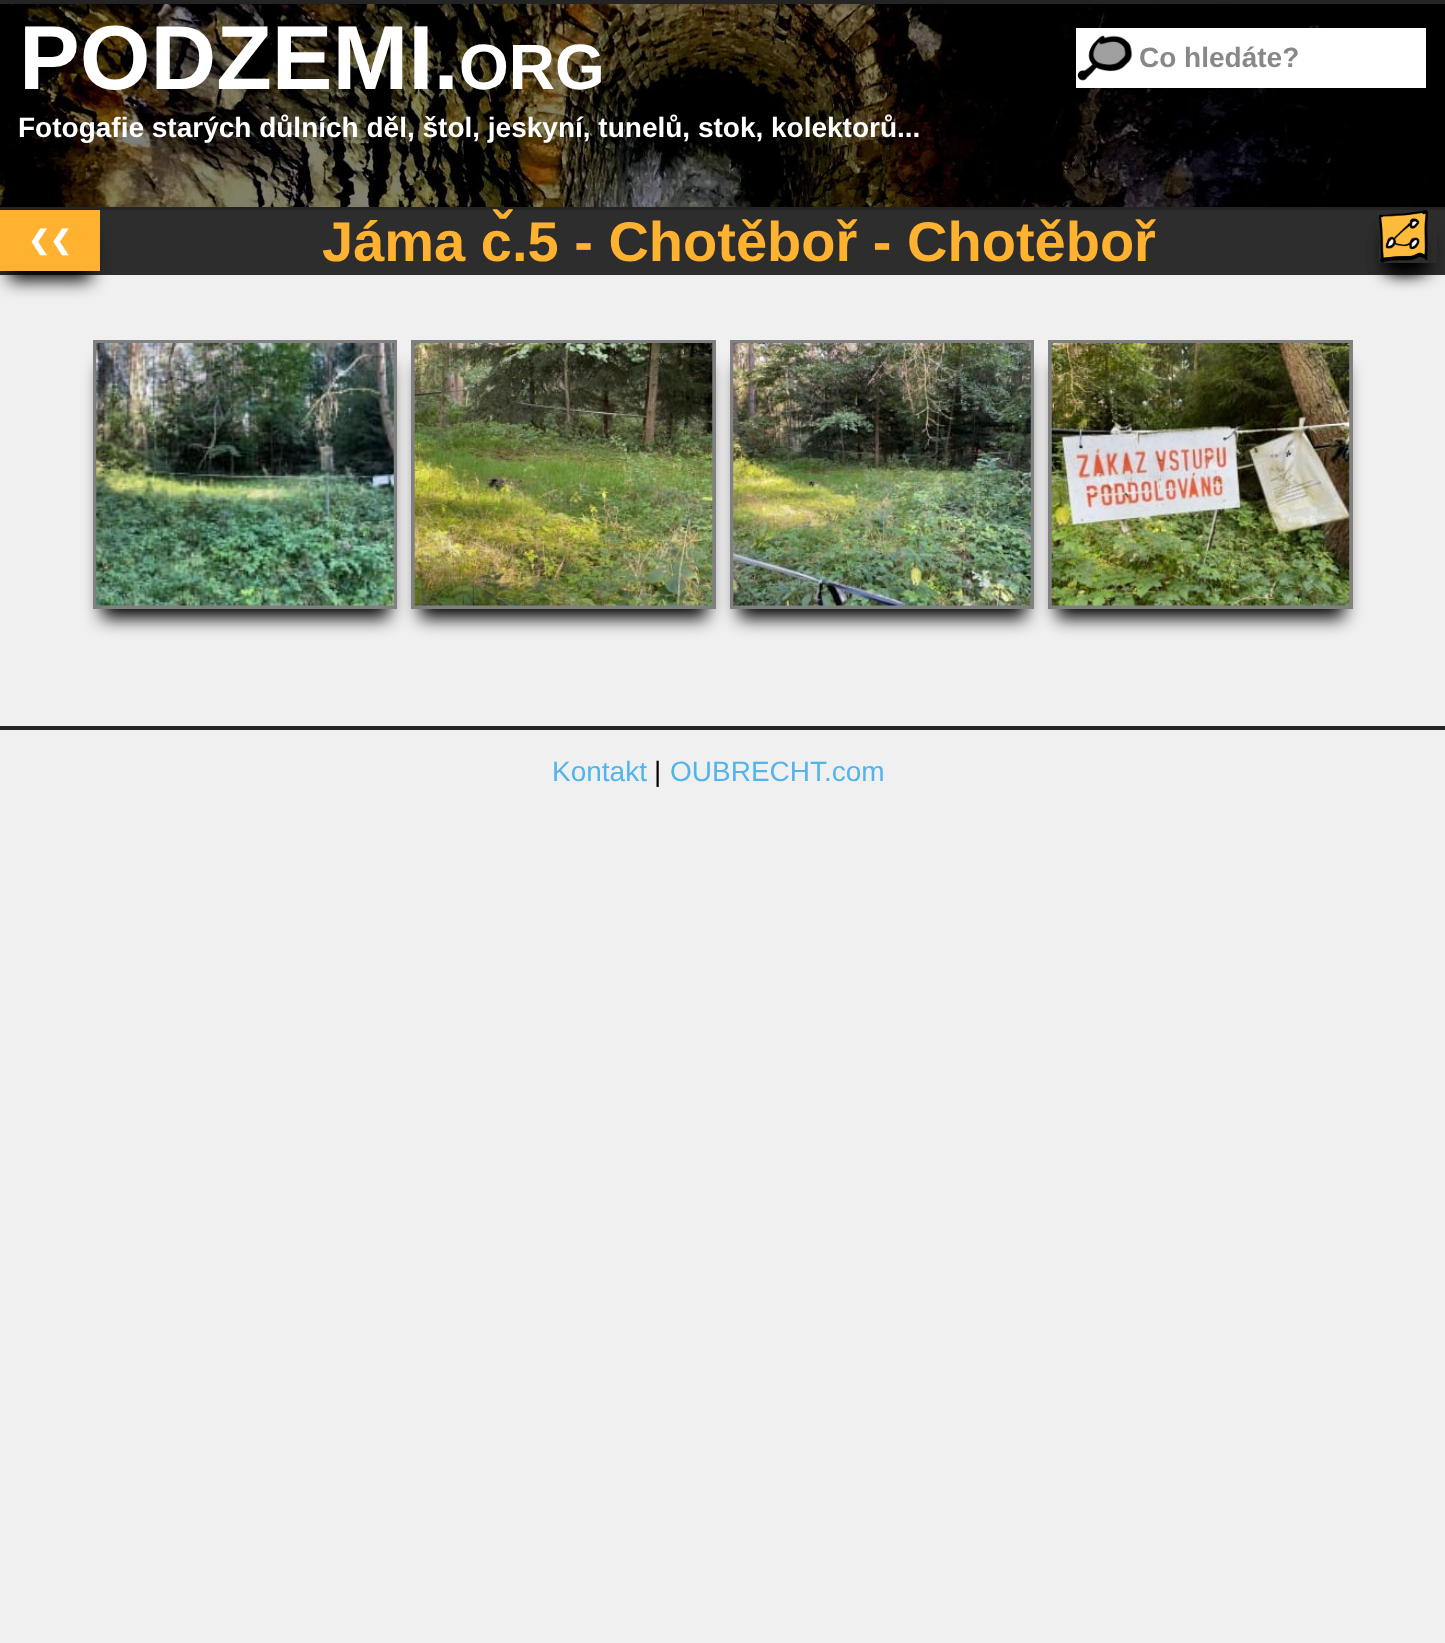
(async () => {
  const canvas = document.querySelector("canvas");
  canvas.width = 1445;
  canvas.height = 1643;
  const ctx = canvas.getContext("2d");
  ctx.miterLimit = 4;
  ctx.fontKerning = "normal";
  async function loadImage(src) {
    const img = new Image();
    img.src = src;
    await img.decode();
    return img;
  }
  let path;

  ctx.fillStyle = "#f0f0f0";
  ctx.fillRect(0, 0, 1445, 1643);
  ctx.drawImage(await loadImage("img/1.png"), 0, 4, 1445, 203);
  for (const [x, y, w, h, color] of [
    [0, 0, 1445, 4, "#242424"],
    [0, 207, 1445, 3, "#242424"],
    [1076, 28, 350, 60, "#ffffff"],
  ]) {
    ctx.fillStyle = color;
    ctx.fillRect(x, y, w, h);
  }
  ctx.drawImage(await loadImage("img/2.png"), 1077, 35, 56, 46);
  ctx.fillStyle = "#2d2d2d";
  ctx.fillRect(0, 210, 1445, 65);
  ctx.fillStyle = "#000000";
  ctx.filter = "blur(9px)";
  ctx.beginPath();
  ctx.rect(9, 236, 82, 44);
  ctx.fill();
  ctx.filter = "none";
  ctx.fillStyle = "#ffb230";
  ctx.fillRect(0, 210, 100, 61);
  ctx.fillStyle = "#000000";
  ctx.filter = "blur(9px)";
  ctx.beginPath();
  ctx.rect(1388, 236, 40, 35);
  ctx.fill();
  ctx.filter = "none";
  ctx.fillStyle = "#2d2d2d";
  ctx.fillRect(1379, 222, 58, 41);
  ctx.save();
  path = new Path2D("M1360 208H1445V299H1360ZM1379 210H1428V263H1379Z");
  ctx.clip(path, "evenodd");
  ctx.fillStyle = "#000000";
  ctx.filter = "blur(9px)";
  ctx.beginPath();
  ctx.rect(1388, 236, 31, 35);
  ctx.fill();
  ctx.filter = "none";
  ctx.restore();
  ctx.drawImage(await loadImage("img/3.png"), 1379, 210, 49, 53);
  ctx.fillStyle = "#000000";
  ctx.filter = "blur(9px)";
  ctx.beginPath();
  ctx.rect(102, 366, 287, 252);
  ctx.fill();
  ctx.filter = "none";
  ctx.strokeStyle = "#808080";
  ctx.lineWidth = 4;
  ctx.strokeRect(95, 342, 300, 265);
  ctx.drawImage(await loadImage("img/4.png"), 96, 343, 298, 263);
  ctx.filter = "blur(9px)";
  ctx.beginPath();
  ctx.rect(420, 366, 287, 252);
  ctx.fill();
  ctx.filter = "none";
  ctx.strokeRect(413, 342, 301, 265);
  ctx.drawImage(await loadImage("img/5.png"), 414, 343, 299, 263);
  ctx.filter = "blur(9px)";
  ctx.beginPath();
  ctx.rect(739, 366, 287, 252);
  ctx.fill();
  ctx.filter = "none";
  ctx.strokeRect(732, 342, 300, 265);
  ctx.drawImage(await loadImage("img/6.png"), 733, 343, 298, 263);
  ctx.filter = "blur(9px)";
  ctx.beginPath();
  ctx.rect(1057, 366, 287, 252);
  ctx.fill();
  ctx.filter = "none";
  ctx.strokeRect(1050, 342, 301, 265);
  ctx.drawImage(await loadImage("img/7.png"), 1051, 343, 299, 263);
  ctx.fillStyle = "#242424";
  ctx.fillRect(0, 726, 1445, 4);
  ctx.font = "bold 91px Liberation Sans";
  ctx.fillStyle = "#ffffff";
  ctx.fillText("PODZEMI.", 19, 89);
  ctx.font = "bold 64px Liberation Sans";
  ctx.fillText("ORG", 459, 89);
  ctx.font = "bold 28px Liberation Sans";
  ctx.fillStyle = "#888888";
  ctx.fillText("Co hledáte?", 1139, 67);
  ctx.fillStyle = "#ffffff";
  ctx.fillText("Fotogafie starých důlních děl, štol, jeskyní, tunelů, stok, kolektorů...", 18, 137);
  ctx.font = "bold 26px DejaVu Sans";
  ctx.fillText("❮❮", 28, 249);
  ctx.font = "bold 56px Liberation Sans";
  ctx.fillStyle = "#ffb230";
  ctx.fillText("Jáma č.5 - Chotěboř - Chotěboř", 322, 261);
  ctx.font = "28px Liberation Sans";
  ctx.fillStyle = "#51b5eb";
  ctx.fillText("Kontakt", 552, 781);
  ctx.fillStyle = "#000000";
  ctx.fillText("|", 654, 781);
  ctx.fillStyle = "#51b5eb";
  ctx.fillText("OUBRECHT.com", 670, 781);
})();
